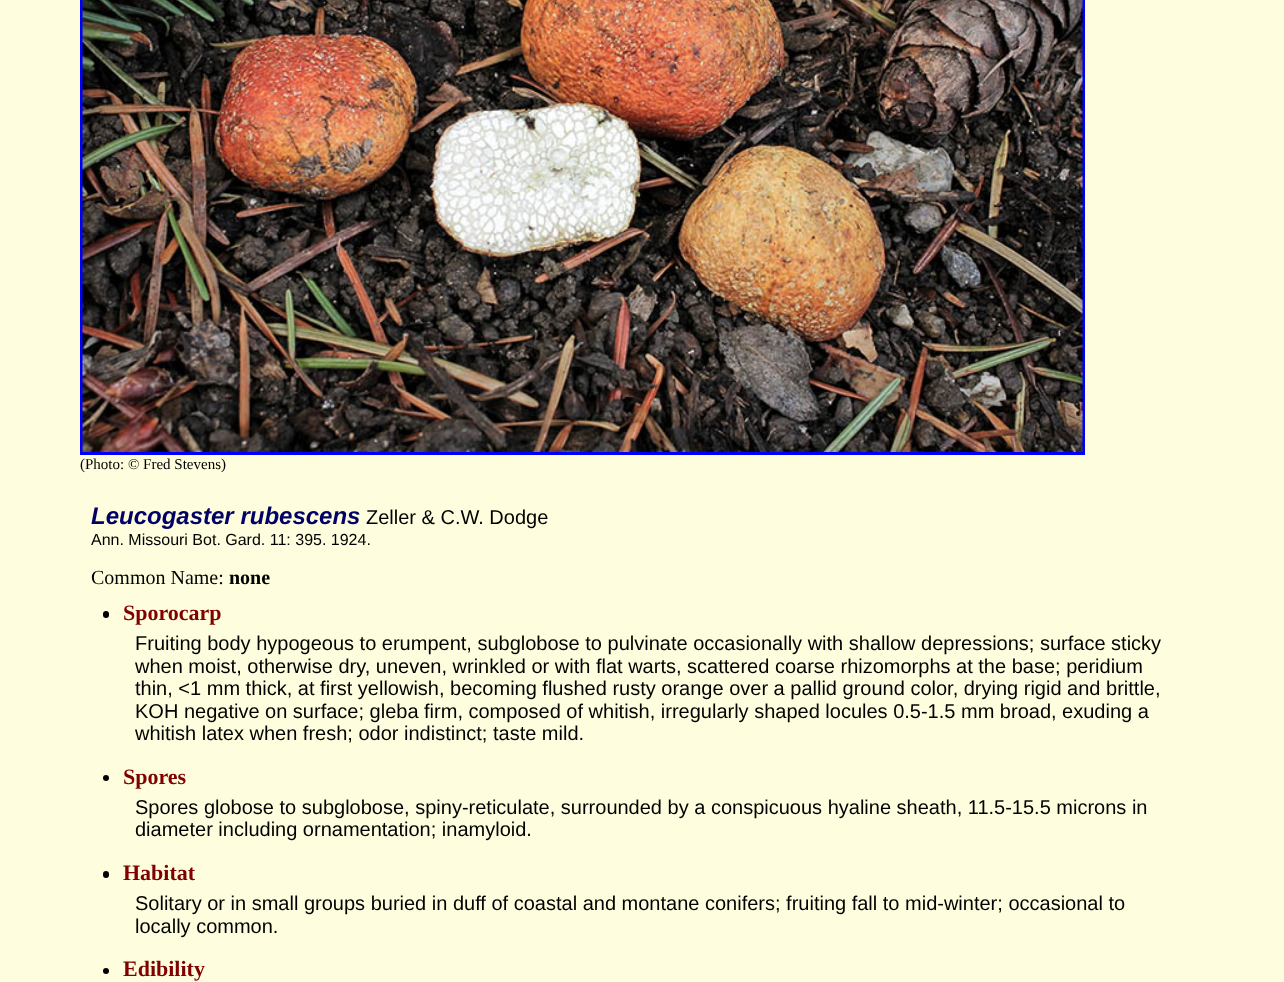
(async () => {
  const canvas = document.querySelector("canvas");
  canvas.width = 1284;
  canvas.height = 982;
  const ctx = canvas.getContext("2d");
  ctx.miterLimit = 4;
  ctx.fontKerning = "normal";
  async function loadImage(src) {
    const img = new Image();
    img.src = src;
    await img.decode();
    return img;
  }

  ctx.fillStyle = "#fefede";
  ctx.fillRect(0, 0, 1284, 982);
  ctx.strokeStyle = "#0000ff";
  ctx.lineWidth = 3;
  ctx.strokeRect(81.5, -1.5, 1002, 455);
  ctx.drawImage(await loadImage("img/1.png"), 82, 0, 1001, 452);
  ctx.fillStyle = "#000000";
  ctx.beginPath();
  ctx.roundRect(103, 611, 6, 7, 3);
  ctx.fill();
  ctx.beginPath();
  ctx.arc(106, 778, 3, 0, Math.PI * 2);
  ctx.fill();
  ctx.beginPath();
  ctx.roundRect(103, 871, 6, 7, 3);
  ctx.fill();
  ctx.beginPath();
  ctx.arc(106, 971, 3, 0, Math.PI * 2);
  ctx.fill();
  ctx.font = "15px Liberation Serif";
  ctx.fillText("(Photo: © Fred Stevens)", 80, 469);
  ctx.font = "italic bold 24px Liberation Sans";
  ctx.fillStyle = "#000066";
  ctx.fillText("Leucogaster rubescens", 91, 524);
  ctx.font = "20px Liberation Sans";
  ctx.fillStyle = "#000000";
  ctx.fillText("Zeller & C.W. Dodge", 366, 524);
  ctx.font = "16px Liberation Sans";
  ctx.fillText("Ann. Missouri Bot. Gard. 11: 395. 1924.", 91, 545);
  ctx.font = "20px Liberation Serif";
  ctx.fillText("Common Name:", 91, 584);
  ctx.font = "bold 20px Liberation Serif";
  ctx.fillText("none", 229, 584);
  ctx.font = "bold 22px Liberation Serif";
  ctx.fillStyle = "#800000";
  ctx.fillText("Sporocarp", 123, 620);
  ctx.font = "20px Liberation Sans";
  ctx.fillStyle = "#000000";
  for (const [text, x, y] of [
    ["Fruiting body hypogeous to erumpent, subglobose to pulvinate occasionally with shallow depressions; surface sticky", 135, 650],
    ["when moist, otherwise dry, uneven, wrinkled or with flat warts, scattered coarse rhizomorphs at the base; peridium", 135, 673],
    ["thin, <1 mm thick, at first yellowish, becoming flushed rusty orange over a pallid ground color, drying rigid and brittle,", 135, 695],
    ["KOH negative on surface; gleba firm, composed of whitish, irregularly shaped locules 0.5-1.5 mm broad, exuding a", 135, 718],
    ["whitish latex when fresh; odor indistinct; taste mild.", 135, 740],
  ]) {
    ctx.fillText(text, x, y);
  }
  ctx.font = "bold 22px Liberation Serif";
  ctx.fillStyle = "#800000";
  ctx.fillText("Spores", 123, 784);
  ctx.font = "20px Liberation Sans";
  ctx.fillStyle = "#000000";
  ctx.fillText("Spores globose to subglobose, spiny-reticulate, surrounded by a conspicuous hyaline sheath, 11.5-15.5 microns in", 135, 814);
  ctx.fillText("diameter including ornamentation; inamyloid.", 135, 836);
  ctx.font = "bold 22px Liberation Serif";
  ctx.fillStyle = "#800000";
  ctx.fillText("Habitat", 123, 880);
  ctx.font = "20px Liberation Sans";
  ctx.fillStyle = "#000000";
  ctx.fillText("Solitary or in small groups buried in duff of coastal and montane conifers; fruiting fall to mid-winter; occasional to", 135, 910);
  ctx.fillText("locally common.", 135, 933);
  ctx.font = "bold 22px Liberation Serif";
  ctx.fillStyle = "#800000";
  ctx.fillText("Edibility", 123, 976);
})();
